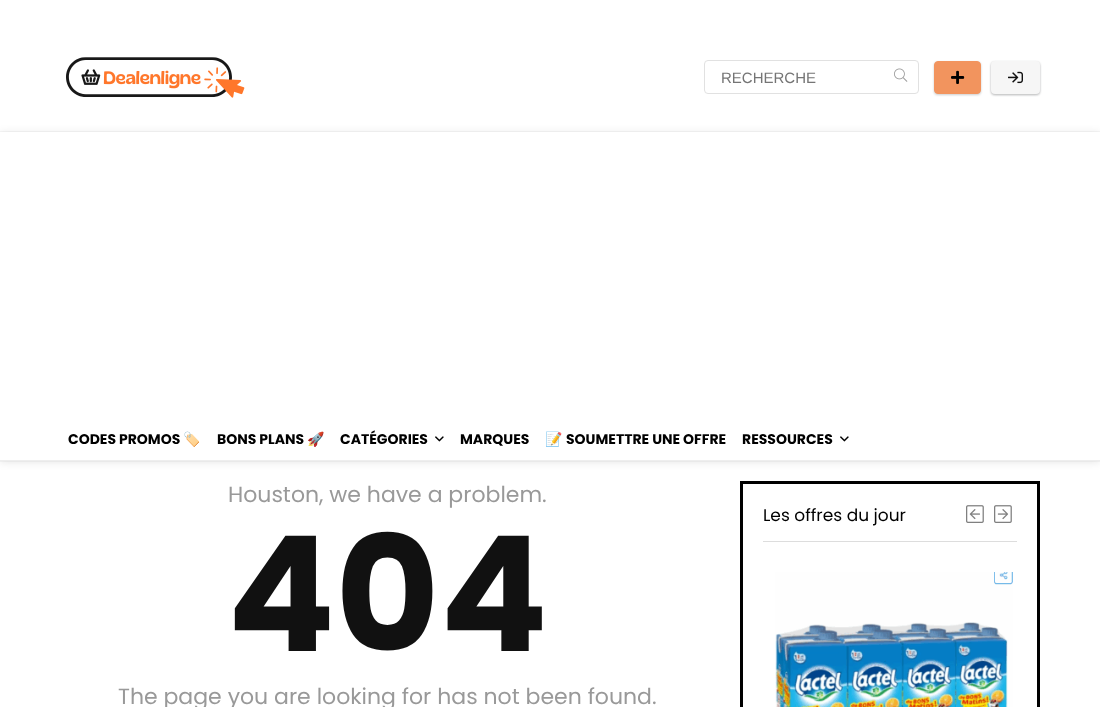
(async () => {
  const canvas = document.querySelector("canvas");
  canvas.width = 1100;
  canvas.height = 707;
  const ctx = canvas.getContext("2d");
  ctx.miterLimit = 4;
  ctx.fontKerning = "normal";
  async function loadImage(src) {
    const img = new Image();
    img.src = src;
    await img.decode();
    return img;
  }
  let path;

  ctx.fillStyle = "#ffffff";
  ctx.fillRect(0, 0, 1100, 707);
  ctx.drawImage(await loadImage("img/1.png"), 66, 57, 179, 41);
  ctx.beginPath();
  ctx.roundRect(704.5, 60.5, 214, 33, 3.5);
  ctx.strokeStyle = "#e1e1e1";
  ctx.stroke();
  ctx.drawImage(await loadImage("img/2.png"), 894, 68, 14, 14);
  ctx.fillStyle = "rgba(0, 0, 0, 0.2)";
  ctx.filter = "blur(1px)";
  ctx.beginPath();
  ctx.roundRect(934, 62, 47, 33, 4);
  ctx.fill();
  ctx.filter = "none";
  ctx.fillStyle = "#f2945e";
  ctx.beginPath();
  ctx.roundRect(934.5, 61.5, 46, 32, 3.5);
  ctx.fill();
  ctx.strokeStyle = "#f2945e";
  ctx.stroke();
  ctx.drawImage(await loadImage("img/3.png"), 951, 70, 14, 14);
  ctx.fillStyle = "rgba(0, 0, 0, 0.08)";
  ctx.filter = "blur(1px)";
  ctx.beginPath();
  ctx.roundRect(991, 62, 49, 33, 4);
  ctx.fill();
  ctx.filter = "none";
  ctx.fillStyle = "rgba(60, 64, 67, 0.3)";
  ctx.filter = "blur(1px)";
  ctx.beginPath();
  ctx.roundRect(991, 62, 49, 33, 4);
  ctx.fill();
  ctx.filter = "none";
  ctx.fillStyle = "#f6f6f6";
  ctx.beginPath();
  ctx.roundRect(991, 61, 49, 33, 4);
  ctx.fill();
  ctx.drawImage(await loadImage("img/4.png"), 1008, 71, 15, 13);
  ctx.strokeStyle = "#f7f7f7";
  ctx.strokeRect(-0.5, 131.5, 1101, 330);
  ctx.save();
  path = new Path2D("M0 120H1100V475H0ZM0 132H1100V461H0Z");
  ctx.clip(path, "evenodd");
  ctx.fillStyle = "rgba(0, 0, 0, 0.1)";
  ctx.filter = "blur(4px)";
  ctx.beginPath();
  ctx.rect(0, 133, 1100, 329);
  ctx.fill();
  ctx.filter = "none";
  ctx.restore();
  ctx.fillStyle = "#eeeeee";
  ctx.fillRect(0, 460, 1100, 1);
  ctx.drawImage(await loadImage("img/5.png"), 435, 436, 9, 6);
  ctx.drawImage(await loadImage("img/5.png"), 840, 436, 9, 6);
  ctx.strokeStyle = "#000000";
  ctx.lineWidth = 3;
  ctx.strokeRect(741.5, 482.5, 297, 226);
  ctx.fillStyle = "#dddddd";
  ctx.fillRect(763, 541, 254, 1);
  ctx.drawImage(await loadImage("img/6.png"), 966, 505, 18, 18);
  ctx.drawImage(await loadImage("img/7.png"), 994, 505, 18, 18);
  ctx.drawImage(await loadImage("img/8.png"), 775, 572, 238, 135);
  ctx.font = "15px Liberation Sans";
  ctx.fillStyle = "#757575";
  ctx.fillText("RECHERCHE", 721, 83);
  ctx.font = "bold 14px Poppins";
  ctx.fillStyle = "#000000";
  ctx.fillText("CODES PROMOS", 68, 444);
  ctx.font = "bold 14px Noto Color Emoji";
  ctx.fillText("🏷️", 183, 444);
  ctx.font = "bold 14px Poppins";
  ctx.fillText("BONS PLANS", 217, 444);
  ctx.font = "bold 14px Noto Color Emoji";
  ctx.fillText("🚀", 307, 444);
  ctx.font = "bold 14px Poppins";
  ctx.fillText("CATÉGORIES", 340, 444);
  ctx.fillText("MARQUES", 460, 444);
  ctx.font = "bold 14px Noto Color Emoji";
  ctx.fillText("📝", 545, 444);
  ctx.font = "bold 14px Poppins";
  ctx.fillText("SOUMETTRE UNE OFFRE", 566, 444);
  ctx.fillText("RESSOURCES", 742, 444);
  ctx.font = "22px Poppins";
  ctx.fillStyle = "#999999";
  ctx.fillText("Houston, we have a problem.", 228, 502);
  ctx.font = "bold 160px Poppins";
  ctx.fillStyle = "#111111";
  ctx.fillText("404", 227, 651);
  ctx.font = "22px Poppins";
  ctx.fillStyle = "#999999";
  ctx.fillText("The page you are looking for has not been found.", 118, 704);
  ctx.font = "17px Poppins";
  ctx.fillStyle = "#000000";
  ctx.fillText("Les offres du jour", 763, 521);
})();
